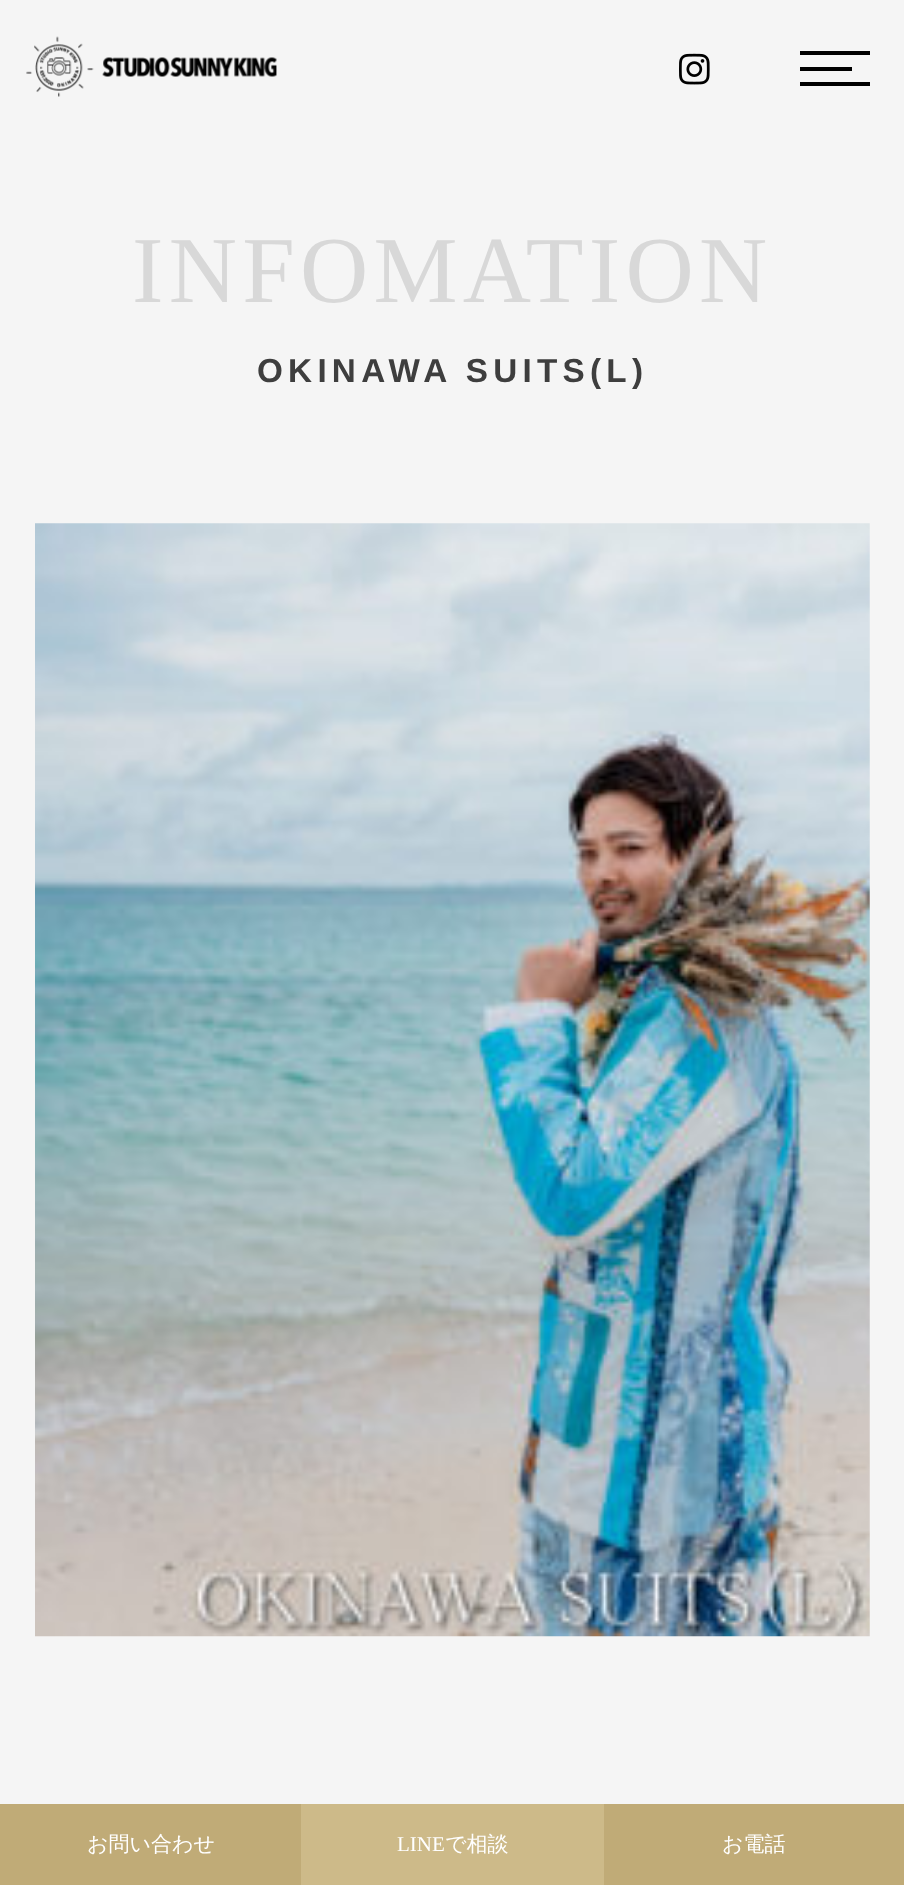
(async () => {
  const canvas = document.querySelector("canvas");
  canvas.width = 904;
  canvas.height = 1885;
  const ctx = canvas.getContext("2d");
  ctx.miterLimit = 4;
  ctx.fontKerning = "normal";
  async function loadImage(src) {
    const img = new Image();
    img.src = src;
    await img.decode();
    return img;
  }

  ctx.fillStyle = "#f5f5f5";
  ctx.fillRect(0, 0, 904, 1885);
  ctx.drawImage(await loadImage("img/1.png"), 26, 36, 251, 61);
  ctx.drawImage(await loadImage("img/2.png"), 679, 53, 31, 32);
  for (const [x, y, w, h, color] of [
    [800, 51, 70, 4, "#000000"],
    [800, 82, 70, 4, "#000000"],
    [800, 67, 52, 4, "#000000"],
  ]) {
    ctx.fillStyle = color;
    ctx.fillRect(x, y, w, h);
  }
  ctx.drawImage(await loadImage("img/3.png"), 35, 523, 835, 1114);
  for (const [x, y, w, h, color] of [
    [0, 1804, 301, 81, "#c0ab77"],
    [301, 1804, 303, 81, "#cdba89"],
    [604, 1804, 300, 81, "#c0ab77"],
  ]) {
    ctx.fillStyle = color;
    ctx.fillRect(x, y, w, h);
  }
  ctx.letterSpacing = "5.25px";
  ctx.font = "94.5px Liberation Serif";
  ctx.fillStyle = "#d8d8d8";
  ctx.fillText("INFOMATION", 132, 302);
  ctx.font = "bold 33.25px Liberation Sans";
  ctx.fillStyle = "#3e3e3e";
  ctx.fillText("OKINAWA SUITS(L)", 257, 382);
  ctx.letterSpacing = "0px";
  ctx.font = "500 21px WenQuanYi Zen Hei";
  ctx.fillStyle = "#ffffff";
  ctx.fillText("お問い合わせ", 87, 1851);
  ctx.font = "21px Liberation Serif";
  ctx.fillText("LINE", 397, 1851);
  ctx.font = "500 21px WenQuanYi Zen Hei";
  ctx.fillText("で相談", 445, 1851);
  ctx.fillText("お電話", 722, 1851);
})();
